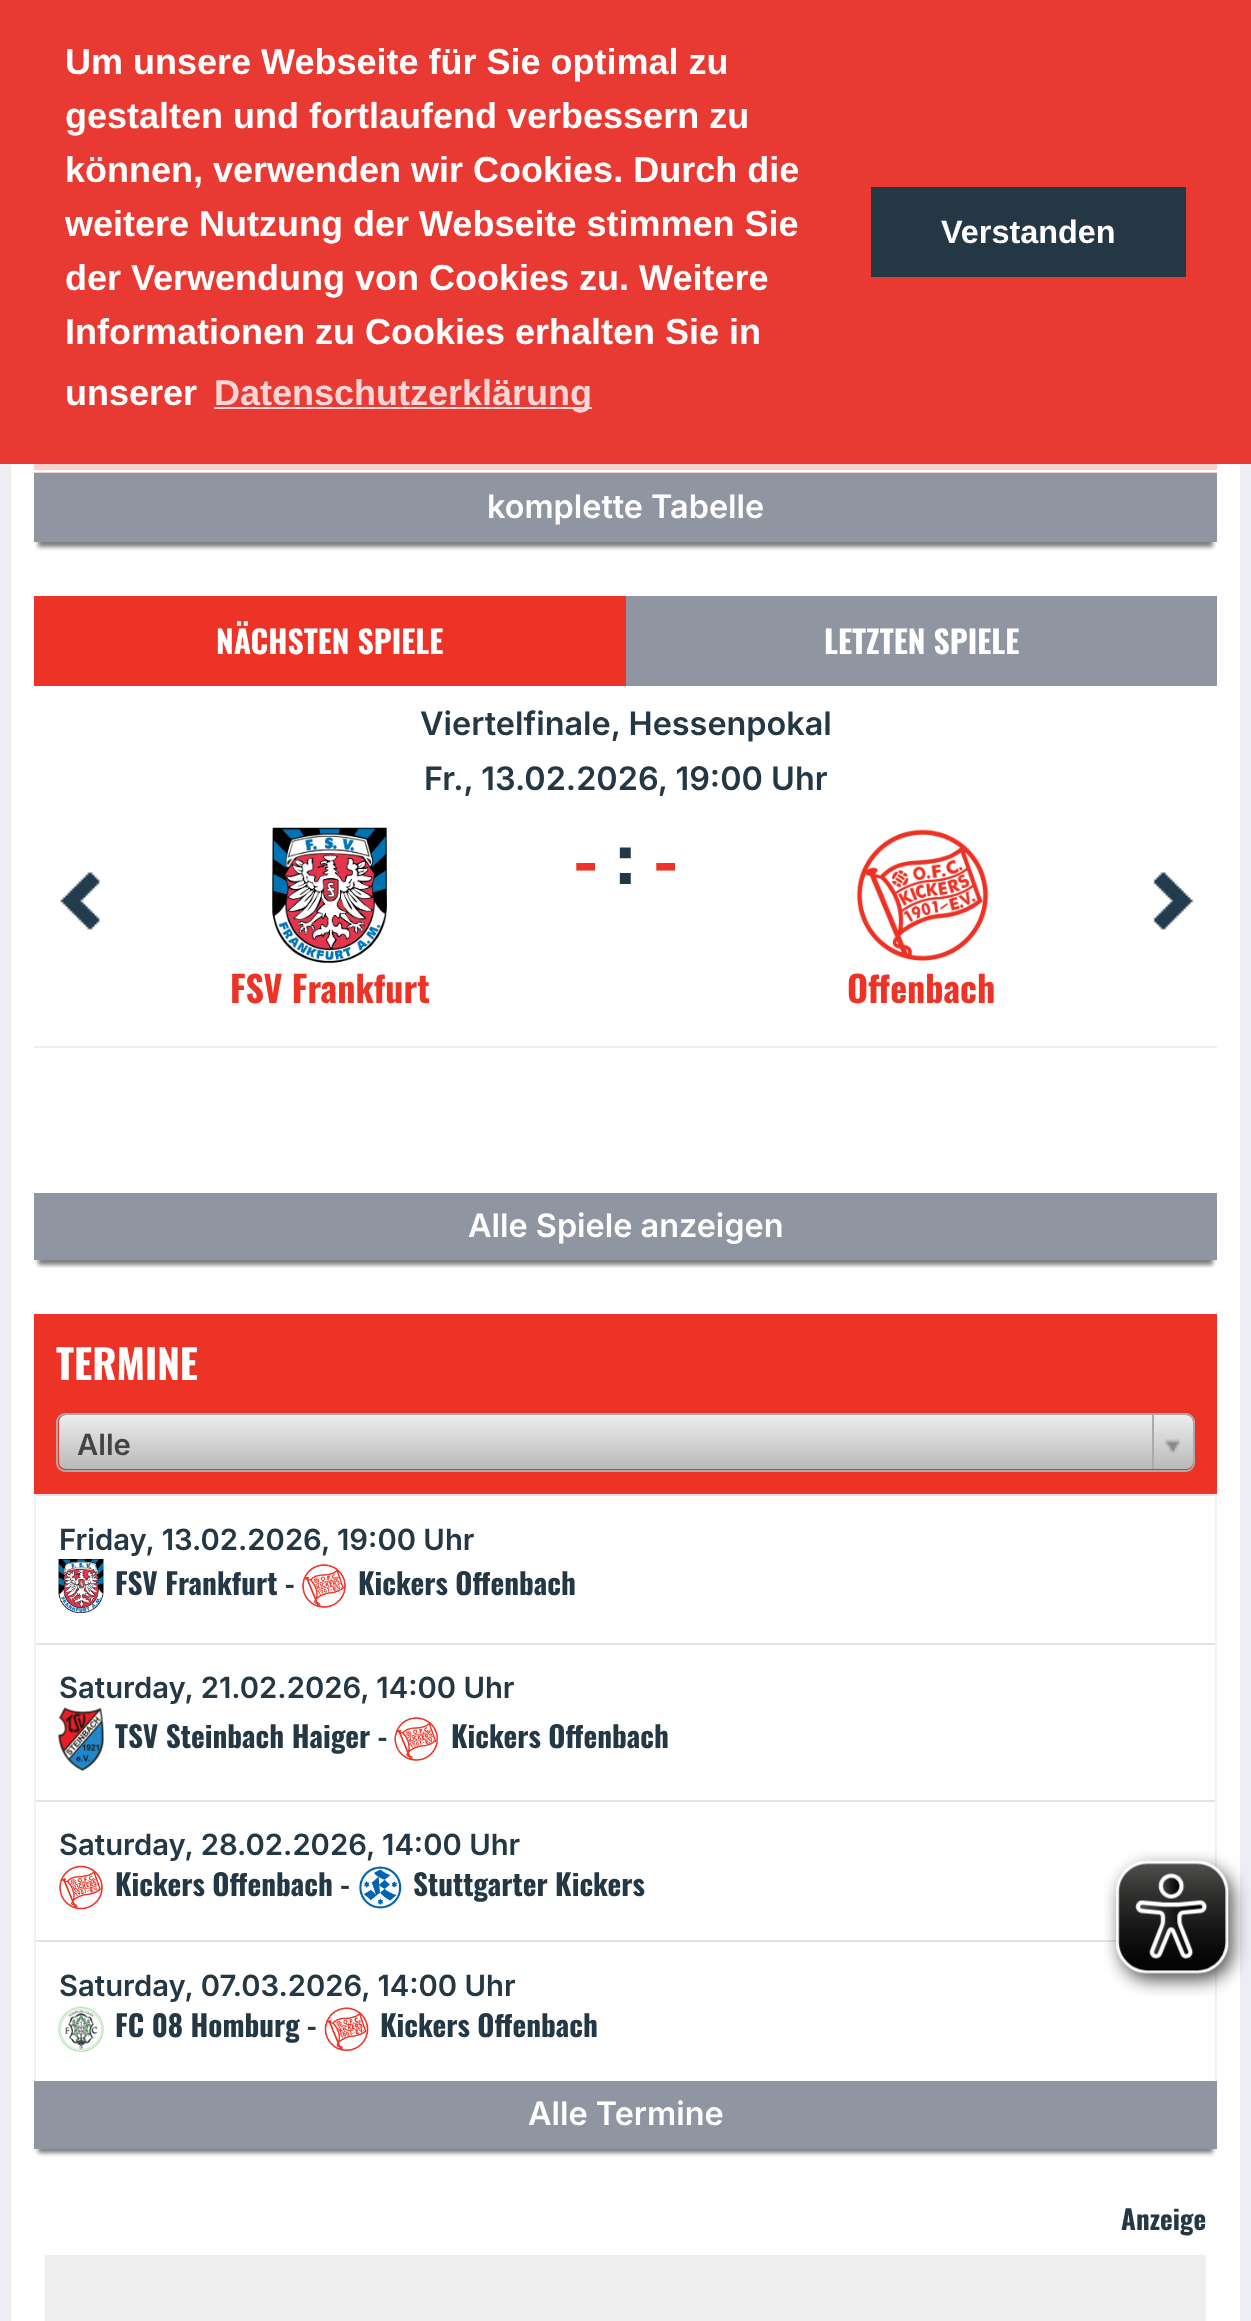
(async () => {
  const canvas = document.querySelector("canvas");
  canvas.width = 1251;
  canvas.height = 2321;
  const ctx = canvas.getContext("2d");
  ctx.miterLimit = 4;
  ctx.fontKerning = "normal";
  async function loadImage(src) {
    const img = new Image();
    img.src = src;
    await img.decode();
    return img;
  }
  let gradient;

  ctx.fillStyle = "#eceef3";
  ctx.fillRect(0, 0, 1251, 2321);
  ctx.fillStyle = "#ffffff";
  ctx.fillRect(11, 464, 1229, 1857);
  ctx.fillStyle = "rgba(0, 0, 0, 0.5)";
  ctx.filter = "blur(2px)";
  ctx.beginPath();
  ctx.rect(38, -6, 1175, 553);
  ctx.fill();
  ctx.filter = "none";
  for (const [x, y, w, h, color] of [
    [0, 0, 1251, 464, "#e83932"],
    [214, 407, 378, 2, "#fad7d6"],
    [871, 187, 315, 90, "#243745"],
    [34, 464, 1183, 9, "#f7cfcb"],
    [34, 470, 1183, 2, "#ffffff"],
    [34, 473, 1183, 69, "#9095a2"],
  ]) {
    ctx.fillStyle = color;
    ctx.fillRect(x, y, w, h);
  }
  ctx.save();
  ctx.beginPath();
  ctx.rect(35, 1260, 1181, 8);
  ctx.clip();
  ctx.fillStyle = "rgba(0, 0, 0, 0.5)";
  ctx.filter = "blur(2px)";
  ctx.beginPath();
  ctx.rect(38, 610, 1175, 655);
  ctx.fill();
  ctx.filter = "none";
  ctx.restore();
  ctx.fillRect(626, 596, 591, 90);
  ctx.fillStyle = "#ed3326";
  ctx.fillRect(34, 596, 592, 90);
  ctx.drawImage(await loadImage("img/1.png"), 272, 827, 115, 136);
  ctx.drawImage(await loadImage("img/2.png"), 856, 829, 133, 132);
  ctx.fillStyle = "#eceef3";
  ctx.fillRect(34, 1046, 1183, 2);
  ctx.drawImage(await loadImage("img/3.png"), 60, 872, 40, 58);
  ctx.drawImage(await loadImage("img/4.png"), 1153, 872, 41, 58);
  ctx.fillStyle = "#9095a2";
  ctx.fillRect(34, 1193, 1183, 67);
  ctx.fillStyle = "rgba(0, 0, 0, 0.5)";
  ctx.filter = "blur(2px)";
  ctx.beginPath();
  ctx.rect(38, 1328, 1175, 825);
  ctx.fill();
  ctx.filter = "none";
  ctx.fillStyle = "#ffffff";
  ctx.fillRect(36, 1496, 1179, 585);
  ctx.fillStyle = "#ed3326";
  ctx.fillRect(34, 1314, 1183, 180);
  gradient = ctx.createLinearGradient(626, 1415, 626, 1469);
  gradient.addColorStop(0, "#ededed");
  gradient.addColorStop(1, "#b9b9b9");
  ctx.fillStyle = gradient;
  ctx.beginPath();
  ctx.roundRect(59, 1415, 1134, 54, 7);
  ctx.fill();
  ctx.beginPath();
  ctx.roundRect(57, 1414, 1137, 57, 8);
  ctx.strokeStyle = "#aaaaaa";
  ctx.lineWidth = 2;
  ctx.stroke();
  gradient = ctx.createLinearGradient(1173, 1415, 1173, 1469);
  gradient.addColorStop(0, "#ededed");
  gradient.addColorStop(1, "#b9b9b9");
  ctx.fillStyle = gradient;
  ctx.beginPath();
  ctx.roundRect(1152, 1415, 41, 54, [0, 9, 9, 0]);
  ctx.fill();
  ctx.fillStyle = "#aaaaaa";
  ctx.fillRect(1152, 1415, 2, 54);
  ctx.drawImage(await loadImage("img/5.png"), 1165, 1439, 15, 15);
  for (const [x, y, w, h, color] of [
    [1216, 1494, 1, 587, "#f2f2f2"],
    [34, 1494, 1, 587, "#f2f2f2"],
    [36, 1494, 1179, 2, "#e0e3eb"],
  ]) {
    ctx.fillStyle = color;
    ctx.fillRect(x, y, w, h);
  }
  ctx.drawImage(await loadImage("img/6.png"), 58, 1559, 46, 54);
  ctx.drawImage(await loadImage("img/7.png"), 302, 1564, 44, 44);
  ctx.fillRect(36, 1643, 1179, 2);
  ctx.drawImage(await loadImage("img/8.png"), 58, 1707, 46, 64);
  ctx.drawImage(await loadImage("img/9.png"), 394, 1717, 44, 44);
  ctx.fillRect(36, 1800, 1179, 2);
  ctx.drawImage(await loadImage("img/10.png"), 59, 1865, 44, 45);
  ctx.drawImage(await loadImage("img/11.png"), 359, 1866, 43, 43);
  ctx.fillRect(36, 1940, 1081, 2);
  ctx.drawImage(await loadImage("img/12.png"), 58, 2006, 46, 46);
  ctx.drawImage(await loadImage("img/13.png"), 324, 2007, 45, 44);
  ctx.fillStyle = "#9095a2";
  ctx.fillRect(34, 2081, 1183, 68);
  ctx.fillStyle = "#efefef";
  ctx.fillRect(45, 2255, 1161, 66);
  ctx.drawImage(await loadImage("img/14.png"), 1104, 1851, 145, 145);
  ctx.font = "bold 36px Liberation Sans";
  ctx.fillStyle = "#ffffff";
  for (const [text, x, y] of [
    ["Um unsere Webseite für Sie optimal zu", 65, 74],
    ["gestalten und fortlaufend verbessern zu", 65, 128],
    ["können, verwenden wir Cookies. Durch die", 65, 182],
    ["weitere Nutzung der Webseite stimmen Sie", 65, 236],
    ["der Verwendung von Cookies zu. Weitere", 65, 290],
    ["Informationen zu Cookies erhalten Sie in", 65, 344],
    ["unserer", 65, 405],
  ]) {
    ctx.fillText(text, x, y);
  }
  ctx.fillStyle = "#fad7d6";
  ctx.fillText("Datenschutzerklärung", 214, 405);
  ctx.font = "bold 32.4px Liberation Sans";
  ctx.fillStyle = "#ffffff";
  ctx.fillText("Verstanden", 941, 243);
  ctx.font = "600 32.4px Inter";
  ctx.fillText("komplette Tabelle", 487, 518);
  ctx.font = "bold 31.5px Oswald";
  ctx.fillText("NÄCHSTEN SPIELE", 216, 654);
  ctx.fillText("LETZTEN SPIELE", 824, 654);
  ctx.font = "600 32.4px Inter";
  ctx.fillStyle = "#243745";
  ctx.fillText("Viertelfinale, Hessenpokal", 420, 735);
  ctx.fillText("Fr., 13.02.2026, 19:00 Uhr", 424, 790);
  ctx.font = "bold 72px Oswald";
  ctx.fillStyle = "#ed3326";
  ctx.fillText("-", 574, 888);
  ctx.fillStyle = "#243745";
  ctx.fillText(":", 615, 888);
  ctx.fillStyle = "#ed3326";
  ctx.fillText("-", 654, 888);
  ctx.font = "bold 36px Oswald";
  ctx.fillText("FSV Frankfurt", 230, 1003);
  ctx.fillText("Offenbach", 847, 1003);
  ctx.font = "600 32.4px Inter";
  ctx.fillStyle = "#ffffff";
  ctx.fillText("Alle Spiele anzeigen", 468, 1237);
  ctx.font = "bold 40.5px Oswald";
  ctx.fillText("TERMINE", 56, 1380);
  ctx.font = "600 29.25px Inter";
  ctx.fillStyle = "#444444";
  ctx.fillText("Alle", 77, 1455);
  ctx.fillStyle = "#243745";
  ctx.fillText("Friday, 13.02.2026, 19:00 Uhr", 59, 1550);
  ctx.font = "bold 29.25px Oswald";
  ctx.fillText("FSV Frankfurt -", 115, 1595);
  ctx.fillText("Kickers Offenbach", 358, 1595);
  ctx.font = "600 29.25px Inter";
  ctx.fillText("Saturday, 21.02.2026, 14:00 Uhr", 59, 1698);
  ctx.font = "bold 29.25px Oswald";
  ctx.fillText("TSV Steinbach Haiger -", 115, 1748);
  ctx.fillText("Kickers Offenbach", 451, 1748);
  ctx.font = "600 29.25px Inter";
  ctx.fillText("Saturday, 28.02.2026, 14:00 Uhr", 59, 1855);
  ctx.font = "bold 29.25px Oswald";
  ctx.fillText("Kickers Offenbach -", 115, 1896);
  ctx.fillText("Stuttgarter Kickers", 413, 1896);
  ctx.font = "600 29.25px Inter";
  ctx.fillText("Saturday, 07.03.2026, 14:00 Uhr", 59, 1996);
  ctx.font = "bold 29.25px Oswald";
  ctx.fillText("FC 08 Homburg -", 115, 2037);
  ctx.fillText("Kickers Offenbach", 380, 2037);
  ctx.font = "600 32.4px Inter";
  ctx.fillStyle = "#ffffff";
  ctx.fillText("Alle Termine", 528, 2125);
  ctx.font = "bold 27px Oswald";
  ctx.fillStyle = "#243745";
  ctx.fillText("Anzeige", 1121, 2230);
})();
